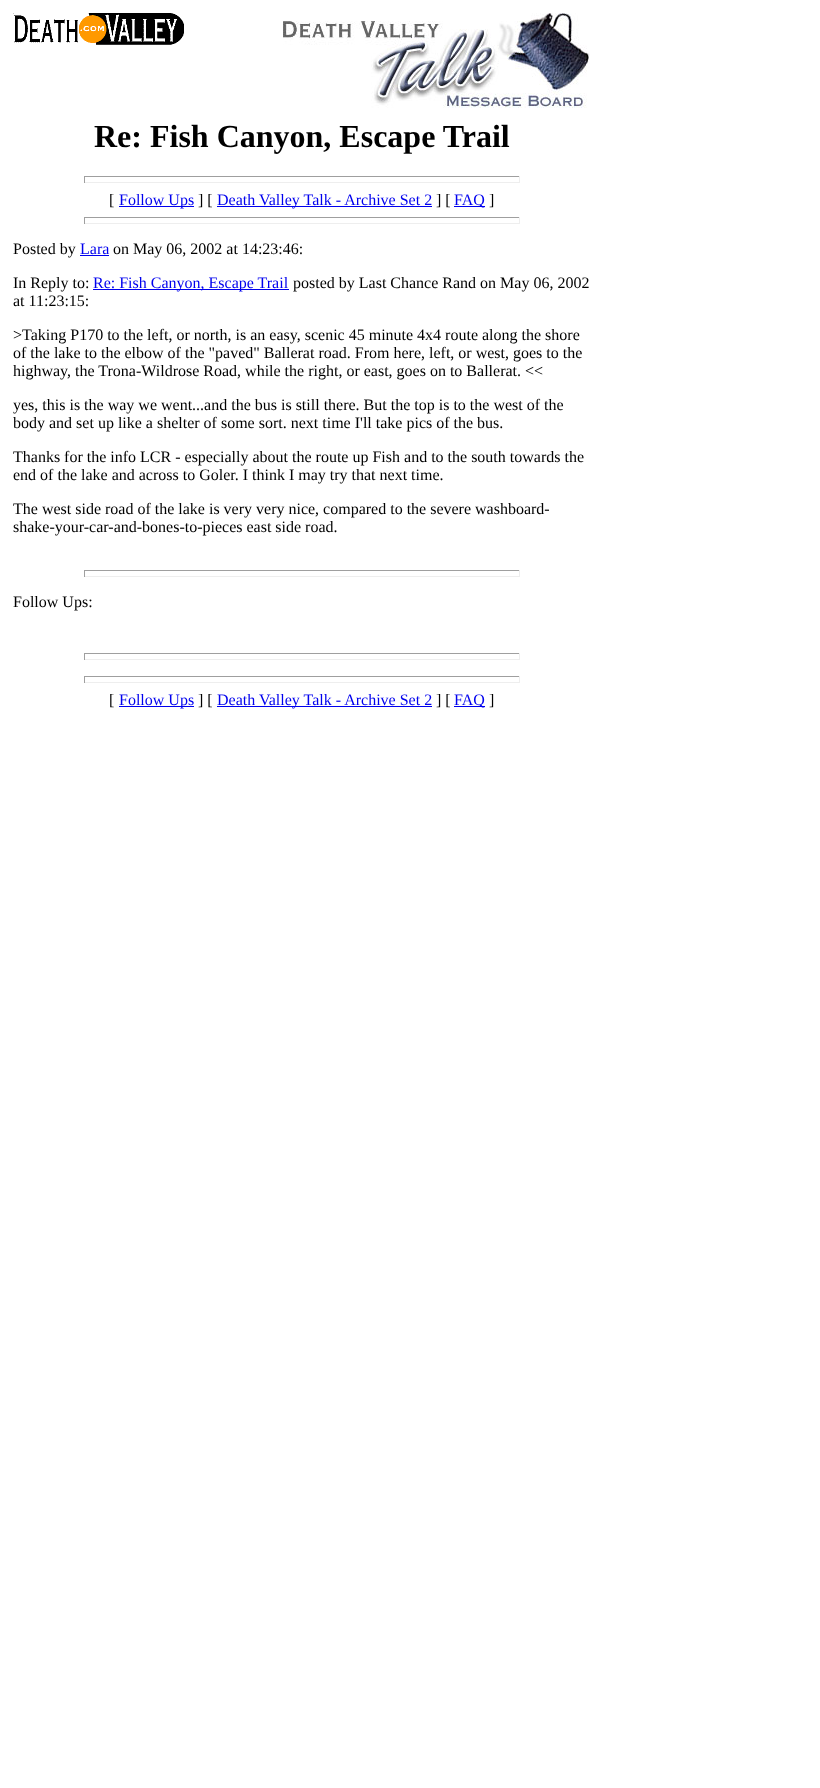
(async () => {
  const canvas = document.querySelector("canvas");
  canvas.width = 820;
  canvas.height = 1788;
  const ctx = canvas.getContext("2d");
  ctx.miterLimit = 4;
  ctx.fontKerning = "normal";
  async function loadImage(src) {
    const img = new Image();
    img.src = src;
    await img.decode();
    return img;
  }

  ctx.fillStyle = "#ffffff";
  ctx.fillRect(0, 0, 820, 1788);
  ctx.drawImage(await loadImage("img/1.png"), 13, 13, 171, 32);
  ctx.drawImage(await loadImage("img/2.png"), 283, 13, 307, 95);
  for (const [x, y, w, h, color] of [
    [84, 176, 436, 1, "#9f9f9f"],
    [519, 176, 1, 7, "#eeeeee"],
    [84, 182, 436, 1, "#eeeeee"],
    [84, 176, 1, 7, "#9f9f9f"],
    [119, 206, 75, 1, "#0000ee"],
    [217, 206, 215, 1, "#0000ee"],
    [454, 206, 31, 1, "#0000ee"],
    [84, 217, 436, 1, "#9f9f9f"],
    [519, 217, 1, 7, "#eeeeee"],
    [84, 223, 436, 1, "#eeeeee"],
    [84, 217, 1, 7, "#9f9f9f"],
    [80, 255, 29, 1, "#0000ee"],
    [93, 289, 196, 1, "#0000ee"],
    [84, 570, 436, 1, "#9f9f9f"],
    [519, 570, 1, 7, "#eeeeee"],
    [84, 576, 436, 1, "#eeeeee"],
    [84, 570, 1, 7, "#9f9f9f"],
    [84, 653, 436, 1, "#9f9f9f"],
    [519, 653, 1, 7, "#eeeeee"],
    [84, 659, 436, 1, "#eeeeee"],
    [84, 653, 1, 7, "#9f9f9f"],
    [84, 676, 436, 1, "#9f9f9f"],
    [519, 676, 1, 7, "#eeeeee"],
    [84, 682, 436, 1, "#eeeeee"],
    [84, 676, 1, 7, "#9f9f9f"],
    [119, 706, 75, 1, "#0000ee"],
    [217, 706, 215, 1, "#0000ee"],
    [454, 706, 31, 1, "#0000ee"],
  ]) {
    ctx.fillStyle = color;
    ctx.fillRect(x, y, w, h);
  }
  ctx.font = "bold 32px Liberation Serif";
  ctx.fillStyle = "#000000";
  ctx.fillText("Re: Fish Canyon, Escape Trail", 94, 147);
  ctx.font = "16px Liberation Serif";
  ctx.fillText("[", 109, 205);
  ctx.fillStyle = "#0000ee";
  ctx.fillText("Follow Ups", 119, 205);
  ctx.fillStyle = "#000000";
  ctx.fillText("] [", 198, 205);
  ctx.fillStyle = "#0000ee";
  ctx.fillText("Death Valley Talk - Archive Set 2", 217, 205);
  ctx.fillStyle = "#000000";
  ctx.fillText("] [", 436, 205);
  ctx.fillStyle = "#0000ee";
  ctx.fillText("FAQ", 454, 205);
  ctx.fillStyle = "#000000";
  ctx.fillText("]", 489, 205);
  ctx.fillText("Posted by", 13, 254);
  ctx.fillStyle = "#0000ee";
  ctx.fillText("Lara", 80, 254);
  ctx.fillStyle = "#000000";
  ctx.fillText("on May 06, 2002 at 14:23:46:", 113, 254);
  ctx.fillText("In Reply to:", 13, 288);
  ctx.fillStyle = "#0000ee";
  ctx.fillText("Re: Fish Canyon, Escape Trail", 93, 288);
  ctx.fillStyle = "#000000";
  for (const [text, x, y] of [
    ["posted by Last Chance Rand on May 06, 2002", 293, 288],
    ["at 11:23:15:", 13, 306],
    [">Taking P170 to the left, or north, is an easy, scenic 45 minute 4x4 route along the shore", 13, 340],
    ["of the lake to the elbow of the \"paved\" Ballerat road. From here, left, or west, goes to the", 13, 358],
    ["highway, the Trona-Wildrose Road, while the right, or east, goes on to Ballerat. <<", 13, 376],
    ["yes, this is the way we went...and the bus is still there. But the top is to the west of the", 13, 410],
    ["body and set up like a shelter of some sort. next time I'll take pics of the bus.", 13, 428],
    ["Thanks for the info LCR - especially about the route up Fish and to the south towards the", 13, 462],
    ["end of the lake and across to Goler. I think I may try that next time.", 13, 480],
    ["The west side road of the lake is very very nice, compared to the severe washboard-", 13, 514],
    ["shake-your-car-and-bones-to-pieces east side road.", 13, 532],
    ["Follow Ups:", 13, 607],
    ["[", 109, 705],
  ]) {
    ctx.fillText(text, x, y);
  }
  ctx.fillStyle = "#0000ee";
  ctx.fillText("Follow Ups", 119, 705);
  ctx.fillStyle = "#000000";
  ctx.fillText("] [", 198, 705);
  ctx.fillStyle = "#0000ee";
  ctx.fillText("Death Valley Talk - Archive Set 2", 217, 705);
  ctx.fillStyle = "#000000";
  ctx.fillText("] [", 436, 705);
  ctx.fillStyle = "#0000ee";
  ctx.fillText("FAQ", 454, 705);
  ctx.fillStyle = "#000000";
  ctx.fillText("]", 489, 705);
})();
